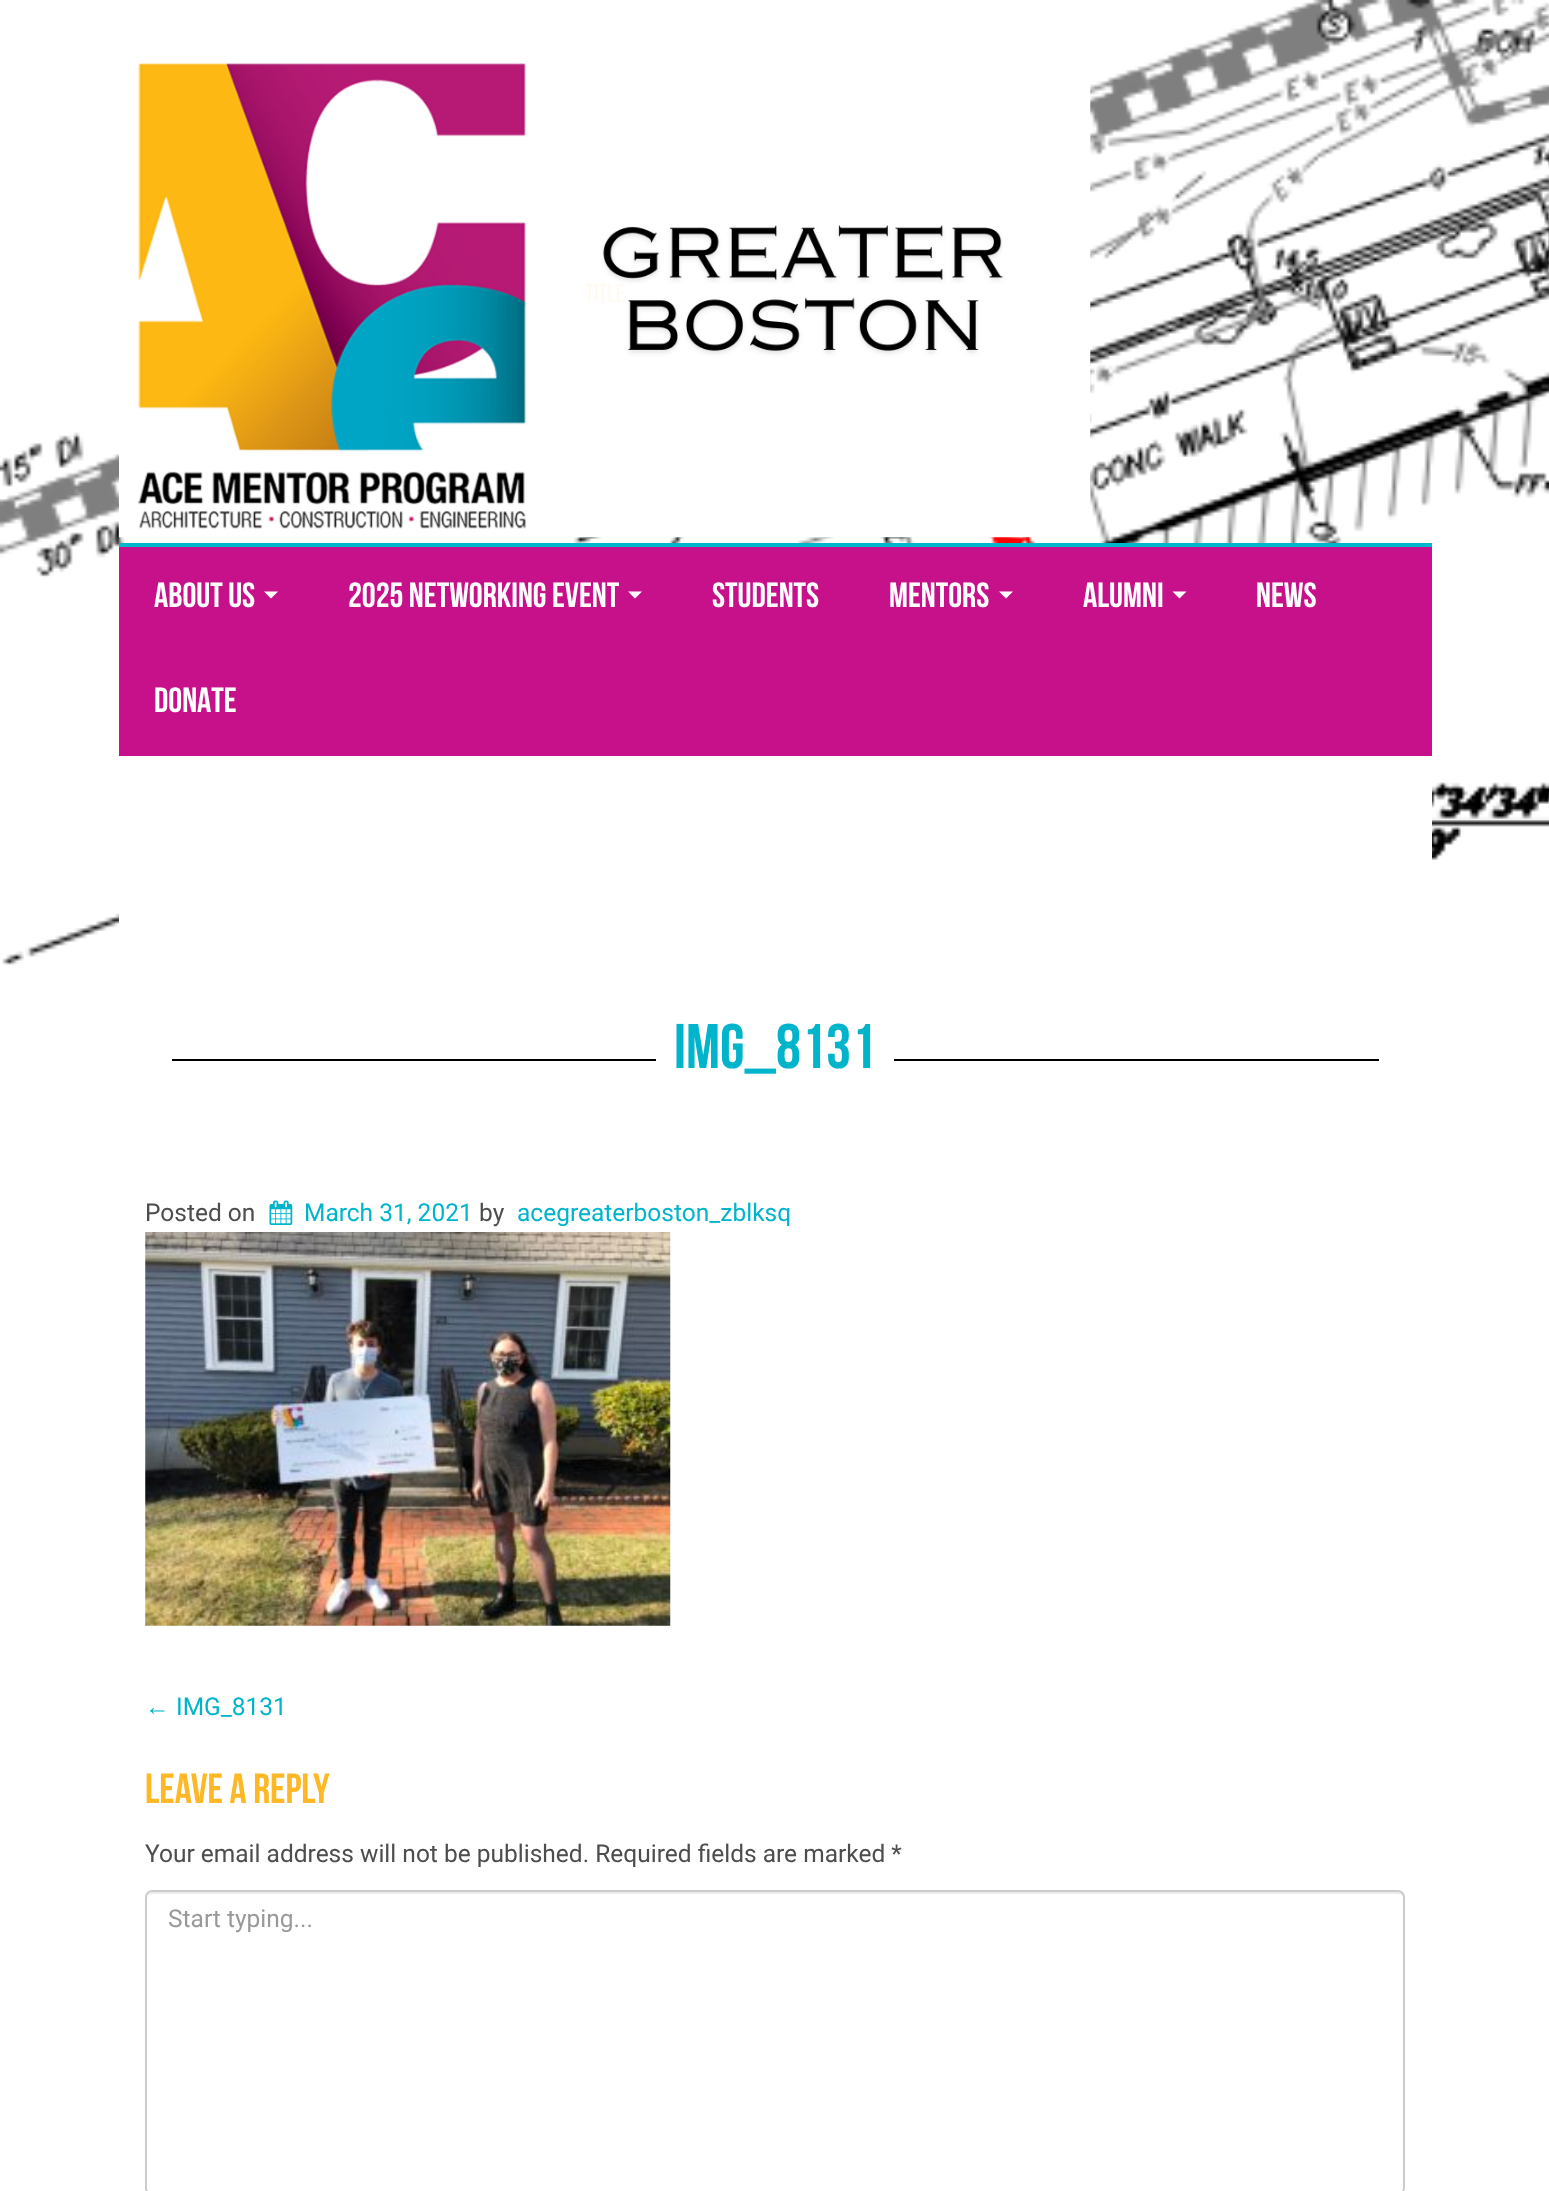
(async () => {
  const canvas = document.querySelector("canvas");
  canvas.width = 1549;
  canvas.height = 2191;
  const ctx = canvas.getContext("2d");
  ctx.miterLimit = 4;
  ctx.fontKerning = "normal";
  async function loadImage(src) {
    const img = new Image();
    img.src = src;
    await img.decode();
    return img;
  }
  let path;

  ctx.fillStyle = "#ffffff";
  ctx.fillRect(0, 0, 1549, 2191);
  ctx.drawImage(await loadImage("img/1.png"), 0, 0, 1549, 984);
  ctx.drawImage(await loadImage("img/2.png"), 119, 63, 972, 475);
  ctx.fillStyle = "#c7118a";
  ctx.fillRect(119, 547, 1313, 209);
  ctx.fillStyle = "#00b4cb";
  ctx.fillRect(119, 543, 1313, 4);
  ctx.fillStyle = "#ffffff";
  path = new Path2D("M264 591.5H278L271 598.5Z");
  ctx.fill(path);
  path = new Path2D("M628 591.5H642L635 598.5Z");
  ctx.fill(path);
  path = new Path2D("M999 591.5H1013L1006 598.5Z");
  ctx.fill(path);
  path = new Path2D("M1172.5 591.5H1186.5L1179.5 598.5Z");
  ctx.fill(path);
  for (const [x, y, w, h, color] of [
    [119, 756, 1313, 228, "#ffffff"],
    [172, 1059, 1207, 2, "#000000"],
    [656, 1059, 238, 2, "#ffffff"],
  ]) {
    ctx.fillStyle = color;
    ctx.fillRect(x, y, w, h);
  }
  ctx.drawImage(await loadImage("img/3.png"), 269, 1200, 24, 25);
  ctx.drawImage(await loadImage("img/4.png"), 145, 1232, 526, 394);
  ctx.fillStyle = "#ececec";
  path = new Path2D("M152 1894H1398C1401 1894 1404 1896 1404 1899V1897C1404 1894 1402 1892 1399 1892H152C149 1892 147 1894 147 1897V1899C147 1896 149 1894 152 1894Z");
  ctx.fill(path);
  ctx.beginPath();
  ctx.roundRect(146, 1891, 1258, 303, 6);
  ctx.strokeStyle = "#cccccc";
  ctx.lineWidth = 2;
  ctx.stroke();
  ctx.font = "bold 35px Bebas Neue";
  ctx.fillStyle = "#ffffff";
  for (const [text, x, y] of [
    ["ABOUT US", 154, 607],
    ["2025 NETWORKING EVENT", 348, 607],
    ["STUDENTS", 712, 607],
    ["MENTORS", 889, 607],
    ["ALUMNI", 1083, 607],
    ["NEWS", 1256, 607],
    ["DONATE", 154, 712],
  ]) {
    ctx.fillText(text, x, y);
  }
  ctx.font = "bold 63px Bebas Neue";
  ctx.fillStyle = "#00b4cb";
  ctx.fillText("IMG_8131", 674, 1068);
  ctx.font = "24.5px Roboto";
  ctx.fillStyle = "#4d4d4d";
  ctx.fillText("Posted on", 145, 1221);
  ctx.fillStyle = "#00b4cb";
  ctx.fillText("March 31, 2021", 304, 1221);
  ctx.fillStyle = "#4d4d4d";
  ctx.fillText("by", 479, 1221);
  ctx.fillStyle = "#00b4cb";
  ctx.fillText("acegreaterboston_zblksq", 517, 1221);
  ctx.font = "24.5px Liberation Sans";
  ctx.fillText("←", 145, 1715);
  ctx.font = "24.5px Roboto";
  ctx.fillText("IMG_8131", 176, 1715);
  ctx.font = "bold 42px Bebas Neue";
  ctx.fillStyle = "#feb825";
  ctx.fillText("Leave a Reply", 145, 1803);
  ctx.font = "24.5px Roboto";
  ctx.fillStyle = "#4d4d4d";
  ctx.fillText("Your email address will not be published. Required fields are marked *", 145, 1862);
  ctx.fillStyle = "#999999";
  ctx.fillText("Start typing...", 168, 1927);
})();
